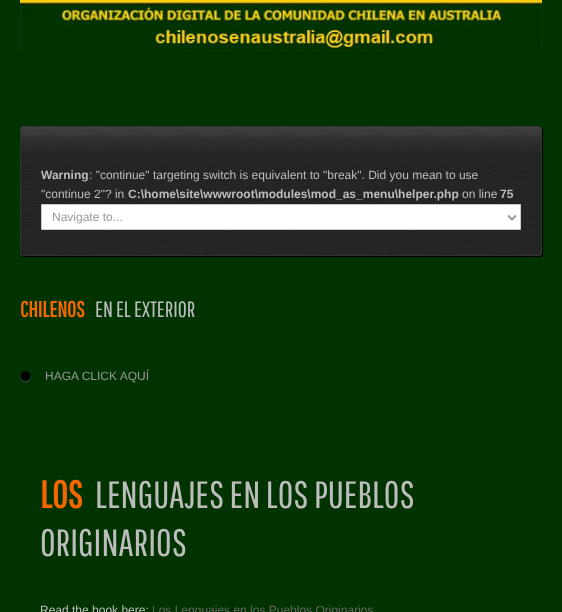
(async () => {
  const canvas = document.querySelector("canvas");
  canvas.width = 562;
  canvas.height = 612;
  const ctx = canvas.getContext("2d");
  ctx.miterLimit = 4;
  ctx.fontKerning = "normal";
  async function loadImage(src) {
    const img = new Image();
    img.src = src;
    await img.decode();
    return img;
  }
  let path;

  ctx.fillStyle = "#013300";
  ctx.fillRect(0, 0, 562, 612);
  ctx.drawImage(await loadImage("img/1.png"), 20, 0, 522, 51);
  ctx.fillStyle = "#000000";
  ctx.filter = "blur(0.5px)";
  ctx.beginPath();
  ctx.roundRect(21, 127, 522, 130, 3);
  ctx.fill();
  ctx.filter = "none";
  ctx.drawImage(await loadImage("img/2.png"), 20, 126, 522, 130);
  ctx.beginPath();
  ctx.roundRect(20.5, 126.5, 521, 129, 2.5);
  ctx.strokeStyle = "#333333";
  ctx.stroke();
  ctx.fillStyle = "#ffffff";
  ctx.beginPath();
  ctx.rect(41.5, 204.5, 479, 25);
  ctx.fill();
  ctx.strokeStyle = "#cbcbcb";
  ctx.stroke();
  path = new Path2D("M508 215.5L512 219.5L516 215.5");
  ctx.strokeStyle = "#999999";
  ctx.lineWidth = 2;
  ctx.stroke(path);
  ctx.drawImage(await loadImage("img/3.png"), 20, 371, 12, 12);
  ctx.font = "bold 12px Liberation Sans";
  ctx.fillStyle = "#bdbdbd";
  ctx.fillText("Warning", 41, 179);
  ctx.font = "12px Liberation Sans";
  ctx.fillText(": \"continue\" targeting switch is equivalent to \"break\". Did you mean to use", 89, 179);
  ctx.fillText("\"continue 2\"? in", 41, 198);
  ctx.font = "bold 12px Liberation Sans";
  ctx.fillText("C:\\home\\site\\wwwroot\\modules\\mod_as_menu\\helper.php", 128, 198);
  ctx.font = "12px Liberation Sans";
  ctx.fillText("on line", 462, 198);
  ctx.font = "bold 12px Liberation Sans";
  ctx.fillText("75", 500, 198);
  ctx.font = "12px Liberation Sans";
  ctx.fillStyle = "#999999";
  ctx.fillText("Navigate to...", 52, 221);
  ctx.font = "bold 22px Pathway Gothic One";
  ctx.fillStyle = "#f36600";
  ctx.fillText("CHILENOS", 20, 317);
  ctx.font = "22px Pathway Gothic One";
  ctx.fillStyle = "#bdbdbd";
  ctx.fillText("EN EL EXTERIOR", 95, 317);
  ctx.font = "12px Liberation Sans";
  ctx.fillStyle = "#999999";
  ctx.fillText("HAGA CLICK AQUÍ", 45, 380);
  ctx.font = "bold 38px Pathway Gothic One";
  ctx.fillStyle = "#f36600";
  ctx.fillText("LOS", 40, 508);
  ctx.font = "38px Pathway Gothic One";
  ctx.fillStyle = "#bdbdbd";
  ctx.fillText("LENGUAJES EN LOS PUEBLOS", 95, 508);
  ctx.fillText("ORIGINARIOS", 40, 556);
  ctx.font = "12px Liberation Sans";
  ctx.fillText("Read the book here:", 40, 614);
  ctx.fillStyle = "#666666";
  ctx.fillText("Los Lenguajes en los Pueblos Originarios", 152, 614);
})();
